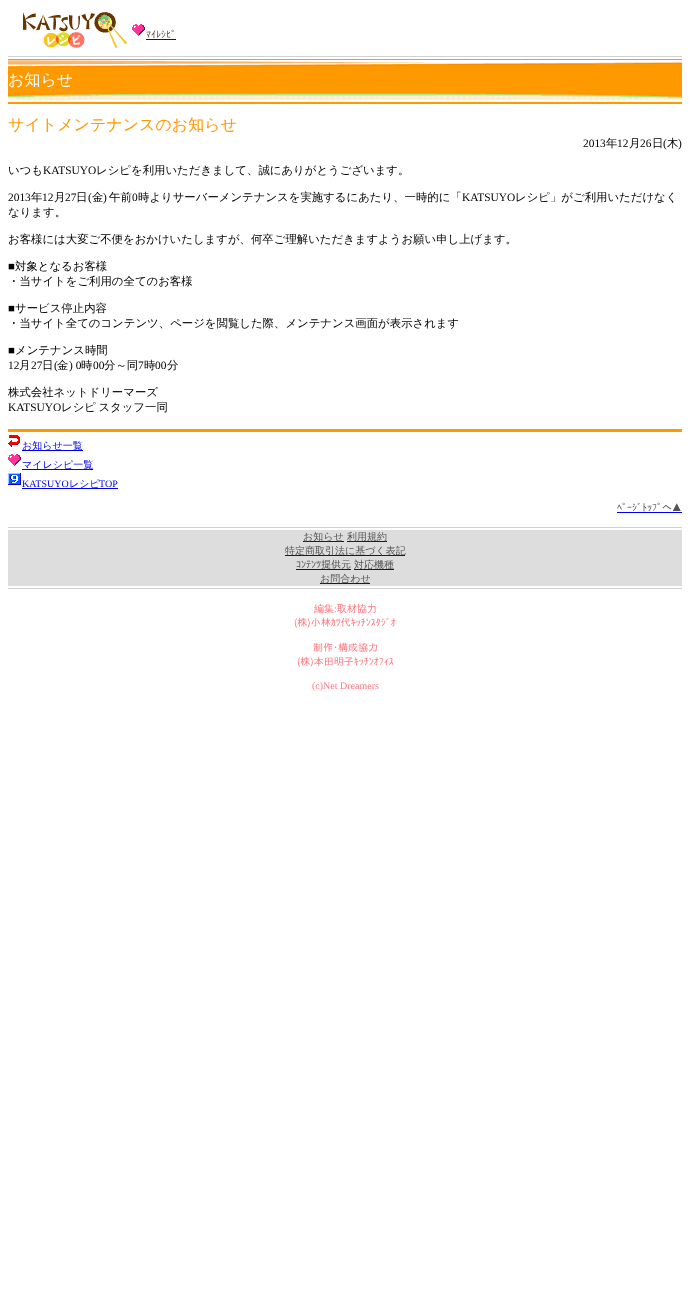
(async () => {
  const canvas = document.querySelector("canvas");
  canvas.width = 690;
  canvas.height = 1290;
  const ctx = canvas.getContext("2d");
  ctx.miterLimit = 4;
  ctx.fontKerning = "normal";
  async function loadImage(src) {
    const img = new Image();
    img.src = src;
    await img.decode();
    return img;
  }

  ctx.fillStyle = "#ffffff";
  ctx.fillRect(0, 0, 690, 1290);
  ctx.drawImage(await loadImage("img/1.png"), 23, 12, 104, 36);
  ctx.drawImage(await loadImage("img/2.png"), 132, 24, 13, 12);
  for (const [x, y, w, h, color] of [
    [146, 39, 30, 1, "#0000ee"],
    [8, 56, 674, 1, "#d1d1d1"],
    [8, 59, 674, 45, "#ff9900"],
  ]) {
    ctx.fillStyle = color;
    ctx.fillRect(x, y, w, h);
  }
  ctx.drawImage(await loadImage("img/3.png"), 8, 60, 674, 8);
  ctx.drawImage(await loadImage("img/4.png"), 8, 93, 674, 9);
  ctx.fillRect(8, 429, 674, 3);
  ctx.drawImage(await loadImage("img/5.png"), 8, 435, 12, 12);
  ctx.fillStyle = "#0000ee";
  ctx.fillRect(22, 450, 61, 1);
  ctx.drawImage(await loadImage("img/2.png"), 8, 454, 13, 12);
  ctx.fillRect(22, 469, 71, 1);
  ctx.drawImage(await loadImage("img/6.png"), 8, 473, 13, 12);
  for (const [x, y, w, h, color] of [
    [22, 488, 96, 1, "#0000ee"],
    [617, 512, 65, 1, "#0000ee"],
    [8, 527, 674, 1, "#d1d1d1"],
    [8, 530, 674, 56, "#dddddd"],
    [303, 541, 41, 1, "#0000ee"],
    [347, 541, 40, 1, "#0000ee"],
    [285, 555, 120, 1, "#0000ee"],
    [296, 569, 55, 1, "#0000ee"],
    [354, 569, 40, 1, "#0000ee"],
    [320, 583, 50, 1, "#0000ee"],
    [8, 588, 674, 1, "#d1d1d1"],
  ]) {
    ctx.fillStyle = color;
    ctx.fillRect(x, y, w, h);
  }
  ctx.font = "10px IPAPGothic";
  ctx.fillStyle = "#64533a";
  ctx.fillText("ﾏｲﾚｼﾋﾟ", 146, 38);
  ctx.font = "500 16px WenQuanYi Zen Hei";
  ctx.fillStyle = "#ffffff";
  ctx.fillText("お知らせ", 8, 85);
  ctx.fillStyle = "#ff9900";
  ctx.fillText("サイトメンテナンスのお知らせ", 8, 130);
  ctx.font = "11.4px Liberation Serif";
  ctx.fillStyle = "#000000";
  ctx.fillText("2013", 583, 147);
  ctx.font = "500 11.4px WenQuanYi Zen Hei";
  ctx.fillText("年", 606, 147);
  ctx.font = "11.4px Liberation Serif";
  ctx.fillText("12", 617, 147);
  ctx.font = "500 11.4px WenQuanYi Zen Hei";
  ctx.fillText("月", 629, 147);
  ctx.font = "11.4px Liberation Serif";
  ctx.fillText("26", 640, 147);
  ctx.font = "500 11.4px WenQuanYi Zen Hei";
  ctx.fillText("日", 652, 147);
  ctx.font = "11.4px Liberation Serif";
  ctx.fillText("(", 663, 147);
  ctx.font = "500 11.4px WenQuanYi Zen Hei";
  ctx.fillText("木", 667, 147);
  ctx.font = "11.4px Liberation Serif";
  ctx.fillText(")", 678, 147);
  ctx.font = "500 11.4px WenQuanYi Zen Hei";
  ctx.fillText("いつも", 8, 174);
  ctx.font = "11.4px Liberation Serif";
  ctx.fillText("KATSUYO", 43, 174);
  ctx.font = "500 11.4px WenQuanYi Zen Hei";
  ctx.fillText("レシピを利用いただきまして、誠にありがとうございます。", 96, 174);
  ctx.font = "11.4px Liberation Serif";
  ctx.fillText("2013", 8, 201);
  ctx.font = "500 11.4px WenQuanYi Zen Hei";
  ctx.fillText("年", 31, 201);
  ctx.font = "11.4px Liberation Serif";
  ctx.fillText("12", 42, 201);
  ctx.font = "500 11.4px WenQuanYi Zen Hei";
  ctx.fillText("月", 54, 201);
  ctx.font = "11.4px Liberation Serif";
  ctx.fillText("27", 65, 201);
  ctx.font = "500 11.4px WenQuanYi Zen Hei";
  ctx.fillText("日", 76, 201);
  ctx.font = "11.4px Liberation Serif";
  ctx.fillText("(", 88, 201);
  ctx.font = "500 11.4px WenQuanYi Zen Hei";
  ctx.fillText("金", 92, 201);
  ctx.font = "11.4px Liberation Serif";
  ctx.fillText(")", 103, 201);
  ctx.font = "500 11.4px WenQuanYi Zen Hei";
  ctx.fillText("午前", 109, 201);
  ctx.font = "11.4px Liberation Serif";
  ctx.fillText("0", 132, 201);
  ctx.font = "500 11.4px WenQuanYi Zen Hei";
  ctx.fillText("時よりサーバーメンテナンスを実施するにあたり、一時的に「", 138, 201);
  ctx.font = "11.4px Liberation Serif";
  ctx.fillText("KATSUYO", 462, 201);
  ctx.font = "500 11.4px WenQuanYi Zen Hei";
  for (const [text, x, y] of [
    ["レシピ」がご利用いただけなく", 515, 201],
    ["なります。", 8, 216],
    ["お客様には大変ご不便をおかけいたしますが、何卒ご理解いただきますようお願い申し上げます。", 8, 243],
  ]) {
    ctx.fillText(text, x, y);
  }
  ctx.font = "11.4px Liberation Serif";
  ctx.fillText("■", 8, 270);
  ctx.font = "500 11.4px WenQuanYi Zen Hei";
  ctx.fillText("対象となるお客様", 15, 270);
  ctx.fillText("・当サイトをご利用の全てのお客様", 8, 285);
  ctx.font = "11.4px Liberation Serif";
  ctx.fillText("■", 8, 312);
  ctx.font = "500 11.4px WenQuanYi Zen Hei";
  ctx.fillText("サービス停止内容", 15, 312);
  ctx.fillText("・当サイト全てのコンテンツ、ページを閲覧した際、メンテナンス画面が表示されます", 8, 327);
  ctx.font = "11.4px Liberation Serif";
  ctx.fillText("■", 8, 354);
  ctx.font = "500 11.4px WenQuanYi Zen Hei";
  ctx.fillText("メンテナンス時間", 15, 354);
  ctx.font = "11.4px Liberation Serif";
  ctx.fillText("12", 8, 369);
  ctx.font = "500 11.4px WenQuanYi Zen Hei";
  ctx.fillText("月", 19, 369);
  ctx.font = "11.4px Liberation Serif";
  ctx.fillText("27", 31, 369);
  ctx.font = "500 11.4px WenQuanYi Zen Hei";
  ctx.fillText("日", 42, 369);
  ctx.font = "11.4px Liberation Serif";
  ctx.fillText("(", 54, 369);
  ctx.font = "500 11.4px WenQuanYi Zen Hei";
  ctx.fillText("金", 57, 369);
  ctx.font = "11.4px Liberation Serif";
  ctx.fillText(") 0", 69, 369);
  ctx.font = "500 11.4px WenQuanYi Zen Hei";
  ctx.fillText("時", 81, 369);
  ctx.font = "11.4px Liberation Serif";
  ctx.fillText("00", 93, 369);
  ctx.font = "500 11.4px WenQuanYi Zen Hei";
  ctx.fillText("分～同", 104, 369);
  ctx.font = "11.4px Liberation Serif";
  ctx.fillText("7", 138, 369);
  ctx.font = "500 11.4px WenQuanYi Zen Hei";
  ctx.fillText("時", 144, 369);
  ctx.font = "11.4px Liberation Serif";
  ctx.fillText("00", 155, 369);
  ctx.font = "500 11.4px WenQuanYi Zen Hei";
  ctx.fillText("分", 167, 369);
  ctx.fillText("株式会社ネットドリーマーズ", 8, 396);
  ctx.font = "11.4px Liberation Serif";
  ctx.fillText("KATSUYO", 8, 411);
  ctx.wordSpacing = "-1px";
  ctx.font = "500 11.4px WenQuanYi Zen Hei";
  ctx.fillText("レシピ スタッフ一同", 61, 411);
  ctx.wordSpacing = "0px";
  ctx.font = "500 10px WenQuanYi Zen Hei";
  ctx.fillStyle = "#0000ee";
  ctx.fillText("お知らせ一覧", 22, 449);
  ctx.fillText("マイレシピ一覧", 22, 468);
  ctx.font = "10px Liberation Serif";
  ctx.fillText("KATSUYO", 22, 487);
  ctx.font = "500 10px WenQuanYi Zen Hei";
  ctx.fillText("レシピ", 69, 487);
  ctx.font = "10px Liberation Serif";
  ctx.fillText("TOP", 99, 487);
  ctx.font = "10px IPAPGothic";
  ctx.fillStyle = "#555555";
  ctx.fillText("ﾍﾟｰｼﾞﾄｯﾌﾟへ▲", 617, 511);
  ctx.font = "500 10px WenQuanYi Zen Hei";
  for (const [text, x, y] of [
    ["お知らせ", 303, 540],
    ["利用規約", 347, 540],
    ["特定商取引法に基づく表記", 285, 554],
  ]) {
    ctx.fillText(text, x, y);
  }
  ctx.font = "10px IPAPGothic";
  ctx.fillText("ｺﾝﾃﾝﾂ提供元", 296, 568);
  ctx.font = "500 10px WenQuanYi Zen Hei";
  ctx.fillText("対応機種", 354, 568);
  ctx.fillText("お問合わせ", 320, 582);
  ctx.fillStyle = "#ff757e";
  ctx.fillText("編集 取材協力", 314, 612);
  ctx.font = "10px Liberation Serif";
  ctx.fillText(":", 334, 612);
  ctx.font = "10px IPAPGothic";
  for (const [text, x, y] of [
    ["(株)小林ｶﾂ代ｷｯﾁﾝｽﾀｼﾞｵ", 294, 626],
    ["制作･構成協力", 313, 651],
    ["(株)本田明子ｷｯﾁﾝｵﾌｨｽ", 297, 665],
  ]) {
    ctx.fillText(text, x, y);
  }
  ctx.font = "10px Liberation Serif";
  ctx.fillText("(c)Net Dreamers", 312, 689);
})();
